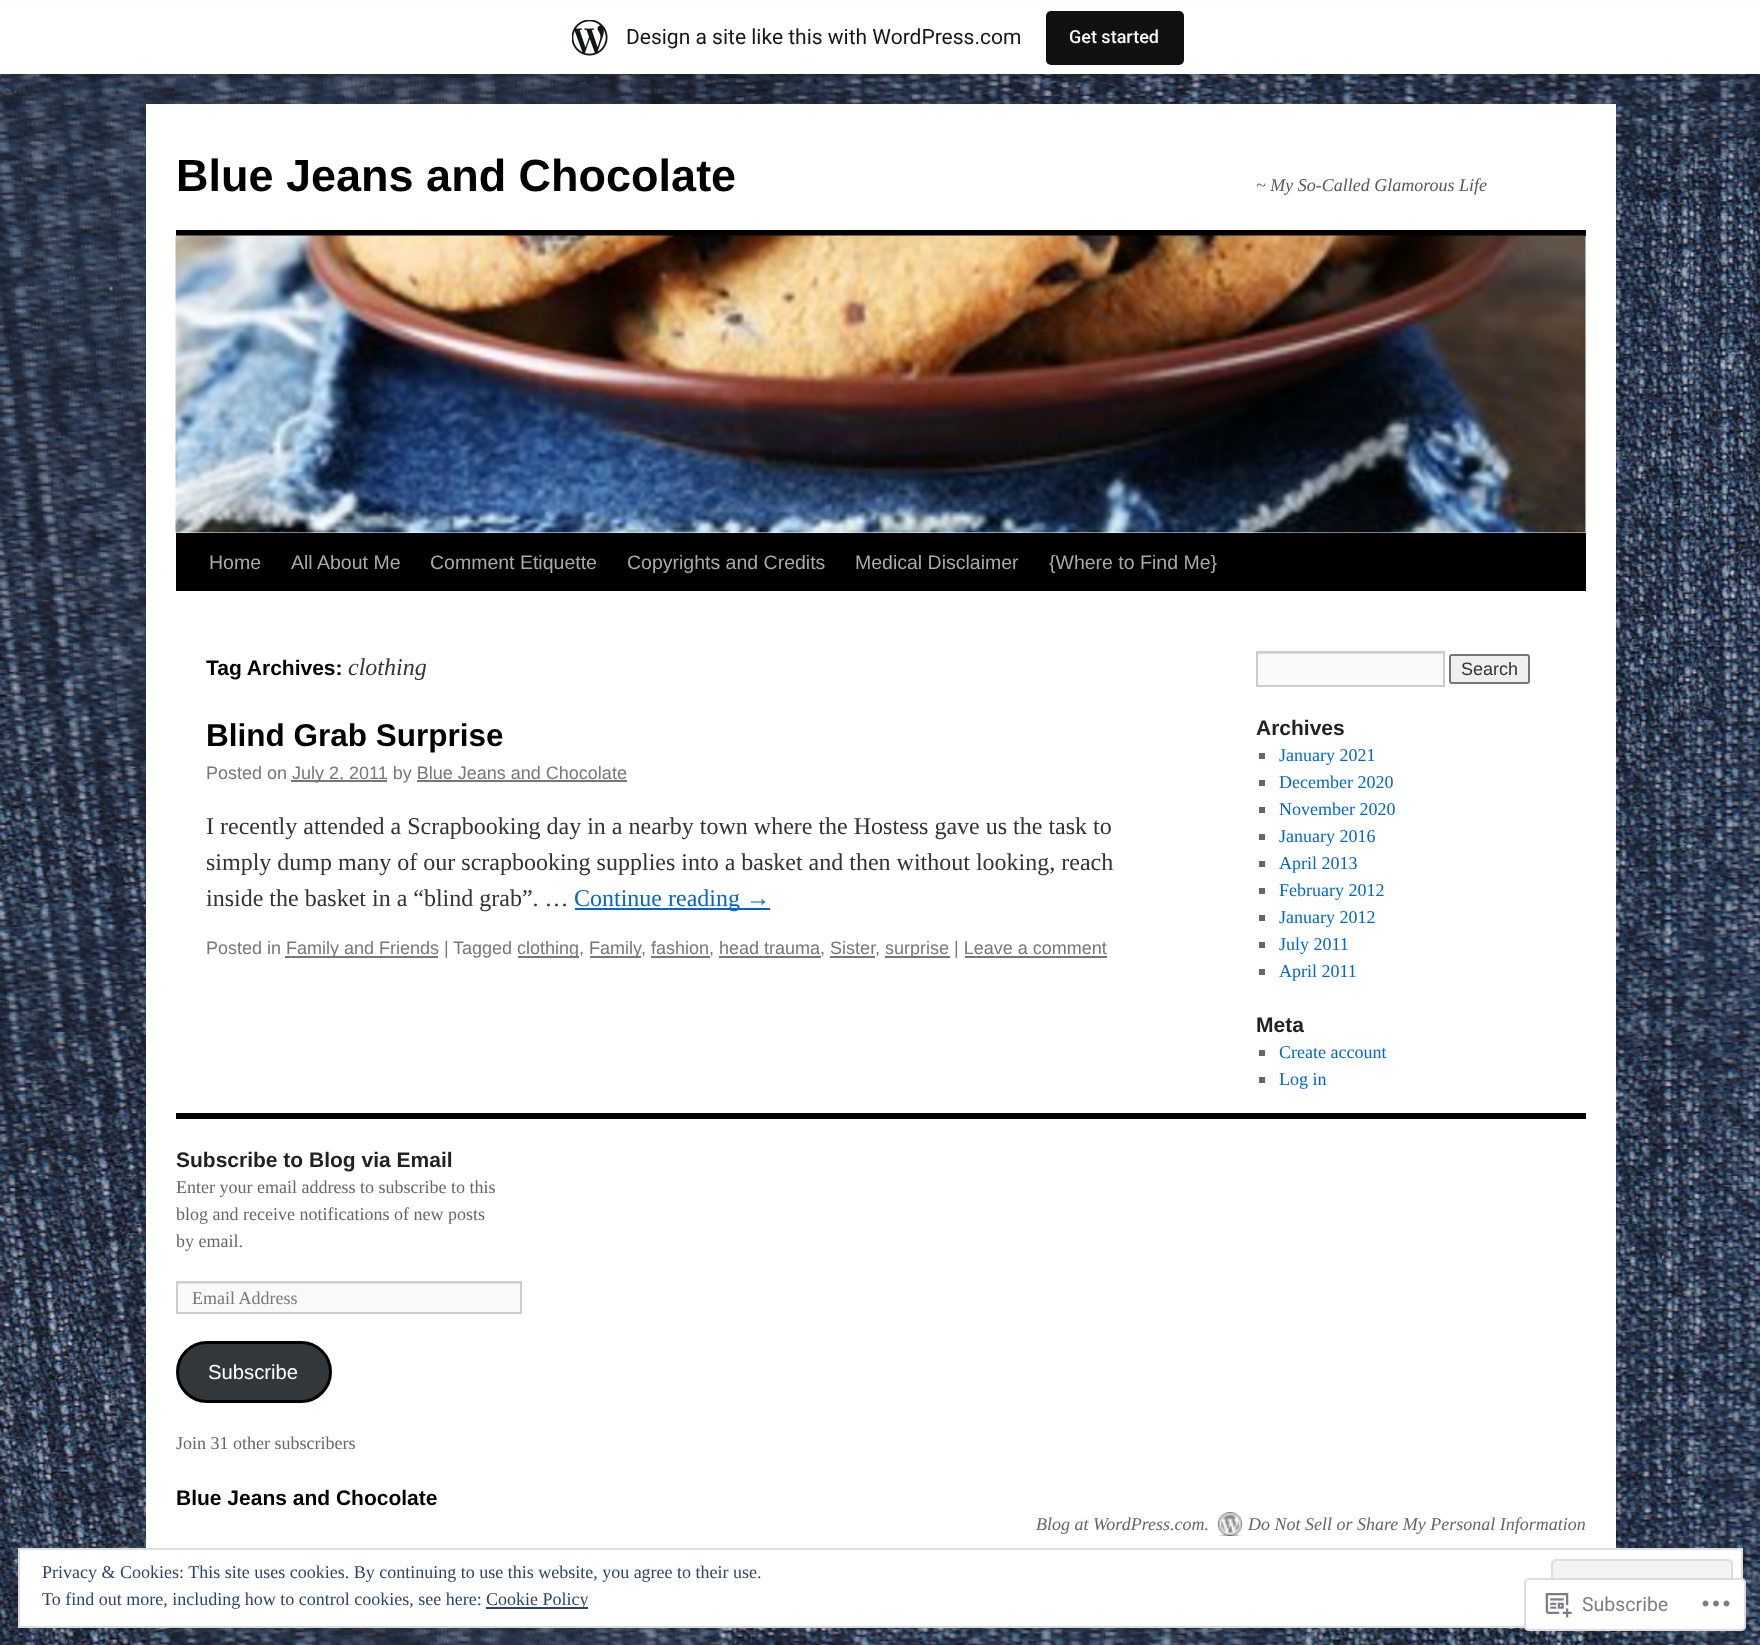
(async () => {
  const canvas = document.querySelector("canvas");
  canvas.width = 1760;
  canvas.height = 1645;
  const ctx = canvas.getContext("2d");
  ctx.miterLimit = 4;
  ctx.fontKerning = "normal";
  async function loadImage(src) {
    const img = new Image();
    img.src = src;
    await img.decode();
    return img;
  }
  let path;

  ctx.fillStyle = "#ffffff";
  ctx.fillRect(0, 0, 1760, 1645);
  ctx.drawImage(await loadImage("img/1.png"), 0, 74, 1760, 1571);
  ctx.fillStyle = "rgba(0, 0, 0, 0.05)";
  ctx.filter = "blur(1.5px)";
  ctx.beginPath();
  ctx.rect(0, 2, 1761, 73);
  ctx.fill();
  ctx.filter = "none";
  ctx.fillStyle = "rgba(0, 0, 0, 0.08)";
  path = new Path2D("M2 74V78H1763V5H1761V74Z");
  ctx.fill(path);
  ctx.fillStyle = "#ffffff";
  ctx.fillRect(0, 1, 1760, 73);
  ctx.drawImage(await loadImage("img/2.png"), 572, 20, 36, 36);
  ctx.fillStyle = "#111111";
  ctx.beginPath();
  ctx.roundRect(1046, 11, 138, 54, 5);
  ctx.fill();
  for (const [x, y, w, h, color] of [
    [146, 104, 1470, 1444, "#ffffff"],
    [176, 230, 1410, 6, "#000000"],
    [176, 533, 1410, 58, "#000000"],
  ]) {
    ctx.fillStyle = color;
    ctx.fillRect(x, y, w, h);
  }
  ctx.drawImage(await loadImage("img/3.png"), 175, 235, 1411, 298);
  for (const [x, y, w, h, color] of [
    [291, 780, 96, 2, "#777777"],
    [417, 780, 210, 2, "#777777"],
    [575, 908, 195, 2, "#0066cc"],
    [285, 956, 153, 2, "#777777"],
    [518, 956, 61, 2, "#777777"],
    [590, 956, 51, 2, "#777777"],
    [651, 956, 59, 2, "#777777"],
    [719, 956, 102, 2, "#777777"],
    [830, 956, 45, 2, "#777777"],
    [885, 956, 65, 2, "#777777"],
    [965, 956, 142, 2, "#777777"],
    [1258, 654, 185, 31, "#f9f9f9"],
  ]) {
    ctx.fillStyle = color;
    ctx.fillRect(x, y, w, h);
  }
  ctx.save();
  ctx.beginPath();
  ctx.rect(1257, 653, 186, 33);
  ctx.clip();
  ctx.fillStyle = "#e0e0e0";
  path = new Path2D("M1108 504H1592V834H1108ZM1258 654H1444V687H1258Z");
  ctx.fill(path, "evenodd");
  ctx.restore();
  ctx.strokeStyle = "#cccccc";
  ctx.lineWidth = 2;
  ctx.strokeRect(1257, 652, 187, 34);
  ctx.fillStyle = "#efefef";
  ctx.beginPath();
  ctx.roundRect(1450, 655, 79, 28, 2);
  ctx.fill();
  ctx.strokeStyle = "#767676";
  ctx.stroke();
  for (const [x, y, w, h, color] of [
    [1259, 753, 6, 6, "#666666"],
    [1259, 780, 6, 6, "#666666"],
    [1259, 807, 6, 6, "#666666"],
    [1259, 834, 6, 6, "#666666"],
    [1259, 861, 6, 6, "#666666"],
    [1259, 888, 6, 6, "#666666"],
    [1259, 915, 6, 6, "#666666"],
    [1259, 942, 6, 6, "#666666"],
    [1259, 969, 6, 6, "#666666"],
    [1259, 1050, 6, 6, "#666666"],
    [1259, 1077, 6, 6, "#666666"],
    [176, 1113, 1410, 6, "#000000"],
    [178, 1284, 342, 28, "#f9f9f9"],
  ]) {
    ctx.fillStyle = color;
    ctx.fillRect(x, y, w, h);
  }
  ctx.save();
  ctx.beginPath();
  ctx.rect(177, 1283, 344, 30);
  ctx.clip();
  ctx.fillStyle = "#e0e0e0";
  path = new Path2D("M28 1134H669V1461H28ZM178 1284H522V1314H178Z");
  ctx.fill(path, "evenodd");
  ctx.restore();
  ctx.strokeStyle = "#cccccc";
  ctx.strokeRect(177, 1282, 344, 31);
  ctx.fillStyle = "#32373c";
  ctx.beginPath();
  ctx.roundRect(177.5, 1342.5, 153, 59, 29.5);
  ctx.fill();
  ctx.strokeStyle = "#000000";
  ctx.lineWidth = 3;
  ctx.stroke();
  ctx.drawImage(await loadImage("img/4.png"), 1218, 1512, 24, 24);
  ctx.fillStyle = "#ffffff";
  ctx.beginPath();
  ctx.rect(19, 1549, 1723, 78);
  ctx.fill();
  ctx.strokeStyle = "#dedede";
  ctx.lineWidth = 2;
  ctx.stroke();
  ctx.fillStyle = "#f3f3f3";
  ctx.beginPath();
  ctx.roundRect(1552, 1560, 180, 56, 4);
  ctx.fill();
  ctx.stroke();
  ctx.fillStyle = "#2e4467";
  ctx.fillRect(486, 1607, 102, 2);
  ctx.fillStyle = "rgba(255, 255, 255, 0.98)";
  ctx.beginPath();
  ctx.roundRect(1524, 1578, 222, 53, 5);
  ctx.fill();
  ctx.beginPath();
  ctx.roundRect(1525, 1579, 220, 51, 4);
  ctx.strokeStyle = "rgba(220, 220, 222, 0.98)";
  ctx.stroke();
  ctx.drawImage(await loadImage("img/5.png"), 1545, 1593, 27, 25);
  ctx.drawImage(await loadImage("img/6.png"), 1702, 1600, 28, 7);
  ctx.font = "21px Roboto";
  ctx.fillStyle = "#171717";
  ctx.fillText("Design a site like this with WordPress.com", 626, 44);
  ctx.font = "500 18px Roboto";
  ctx.fillStyle = "#f6f7f7";
  ctx.fillText("Get started", 1069, 43);
  ctx.font = "bold 45px Liberation Sans";
  ctx.fillStyle = "#000000";
  ctx.fillText("Blue Jeans and Chocolate", 176, 191);
  ctx.font = "italic 18px Liberation Serif";
  ctx.fillStyle = "#595959";
  ctx.fillText("~ My So-Called Glamorous Life", 1256, 191);
  ctx.font = "19.5px Liberation Sans";
  ctx.fillStyle = "#aaaaaa";
  for (const [text, x, y] of [
    ["Home", 209, 569],
    ["All About Me", 291, 569],
    ["Comment Etiquette", 430, 569],
    ["Copyrights and Credits", 627, 569],
    ["Medical Disclaimer", 855, 569],
    ["{Where to Find Me}", 1049, 569],
  ]) {
    ctx.fillText(text, x, y);
  }
  ctx.font = "bold 21px Liberation Sans";
  ctx.fillStyle = "#000000";
  ctx.fillText("Tag Archives:", 206, 675);
  ctx.font = "italic 24px Liberation Serif";
  ctx.fillStyle = "#333333";
  ctx.fillText("clothing", 348, 675);
  ctx.font = "bold 31.5px Liberation Sans";
  ctx.fillStyle = "#000000";
  ctx.fillText("Blind Grab Surprise", 206, 746);
  ctx.font = "18px Liberation Sans";
  ctx.fillStyle = "#777777";
  ctx.fillText("Posted on", 206, 779);
  ctx.fillText("July 2, 2011 by Blue Jeans and Chocolate", 292, 779);
  ctx.font = "24px Liberation Serif";
  ctx.fillStyle = "#333333";
  for (const [text, x, y] of [
    ["I recently attended a Scrapbooking day in a nearby town where the Hostess gave us the task to", 206, 834],
    ["simply dump many of our scrapbooking supplies into a basket and then without looking, reach", 206, 870],
    ["inside the basket in a “blind grab”. …", 206, 906],
  ]) {
    ctx.fillText(text, x, y);
  }
  ctx.fillStyle = "#0066cc";
  ctx.fillText("Continue reading →", 574, 906);
  ctx.font = "18px Liberation Sans";
  ctx.fillStyle = "#777777";
  for (const [text, x, y] of [
    ["Posted in", 206, 954],
    ["Family and Friends |", 286, 954],
    ["Tagged", 453, 954],
    ["clothing,", 517, 954],
    ["Family", 589, 954],
    [", fashion, head trauma, Sister", 641, 954],
    [",", 875, 954],
    ["surprise | Leave a comment", 885, 954],
  ]) {
    ctx.fillText(text, x, y);
  }
  ctx.fillStyle = "#333333";
  ctx.fillText("Search", 1461, 675);
  ctx.font = "bold 21px Liberation Sans";
  ctx.fillStyle = "#222222";
  ctx.fillText("Archives", 1256, 735);
  ctx.font = "18px Liberation Serif";
  ctx.fillStyle = "#0066cc";
  for (const [text, x, y] of [
    ["January 2021", 1279, 761],
    ["December 2020", 1279, 788],
    ["November 2020", 1279, 815],
    ["January 2016", 1279, 842],
    ["April 2013", 1279, 869],
    ["February 2012", 1279, 896],
    ["January 2012", 1279, 923],
    ["July 2011", 1279, 950],
    ["April 2011", 1279, 977],
  ]) {
    ctx.fillText(text, x, y);
  }
  ctx.font = "bold 21px Liberation Sans";
  ctx.fillStyle = "#222222";
  ctx.fillText("Meta", 1256, 1032);
  ctx.font = "18px Liberation Serif";
  ctx.fillStyle = "#0066cc";
  ctx.fillText("Create account", 1279, 1058);
  ctx.fillText("Log in", 1279, 1085);
  ctx.font = "bold 21px Liberation Sans";
  ctx.fillStyle = "#222222";
  ctx.fillText("Subscribe to Blog via Email", 176, 1167);
  ctx.font = "18px Liberation Serif";
  ctx.fillStyle = "#666666";
  for (const [text, x, y] of [
    ["Enter your email address to subscribe to this", 176, 1193],
    ["blog and receive notifications of new posts", 176, 1220],
    ["by email.", 176, 1247],
  ]) {
    ctx.fillText(text, x, y);
  }
  ctx.fillStyle = "#777777";
  ctx.fillText("Email Address", 192, 1304);
  ctx.font = "20.25px Liberation Sans";
  ctx.fillStyle = "#ffffff";
  ctx.fillText("Subscribe", 208, 1379);
  ctx.font = "18px Liberation Serif";
  ctx.fillStyle = "#666666";
  ctx.fillText("Join 31 other subscribers", 176, 1449);
  ctx.font = "bold 21px Liberation Sans";
  ctx.fillStyle = "#000000";
  ctx.fillText("Blue Jeans and Chocolate", 176, 1505);
  ctx.font = "italic 18px Liberation Serif";
  ctx.fillStyle = "#666666";
  ctx.fillText("Blog at WordPress.com.", 1036, 1530);
  ctx.fillText("Do Not Sell or Share My Personal Information", 1248, 1530);
  ctx.font = "18px Liberation Serif";
  ctx.fillStyle = "#2e4467";
  for (const [text, x, y] of [
    ["Privacy & Cookies: This site uses cookies. By continuing to use this website, you agree to their use.", 42, 1578],
    ["To find out more, including how to control cookies, see here:", 42, 1605],
    ["Cookie Policy", 486, 1605],
  ]) {
    ctx.fillText(text, x, y);
  }
  ctx.font = "19.5px Roboto";
  ctx.fillStyle = "#7a7e84";
  ctx.fillText("Subscribe", 1582, 1611);
})();
